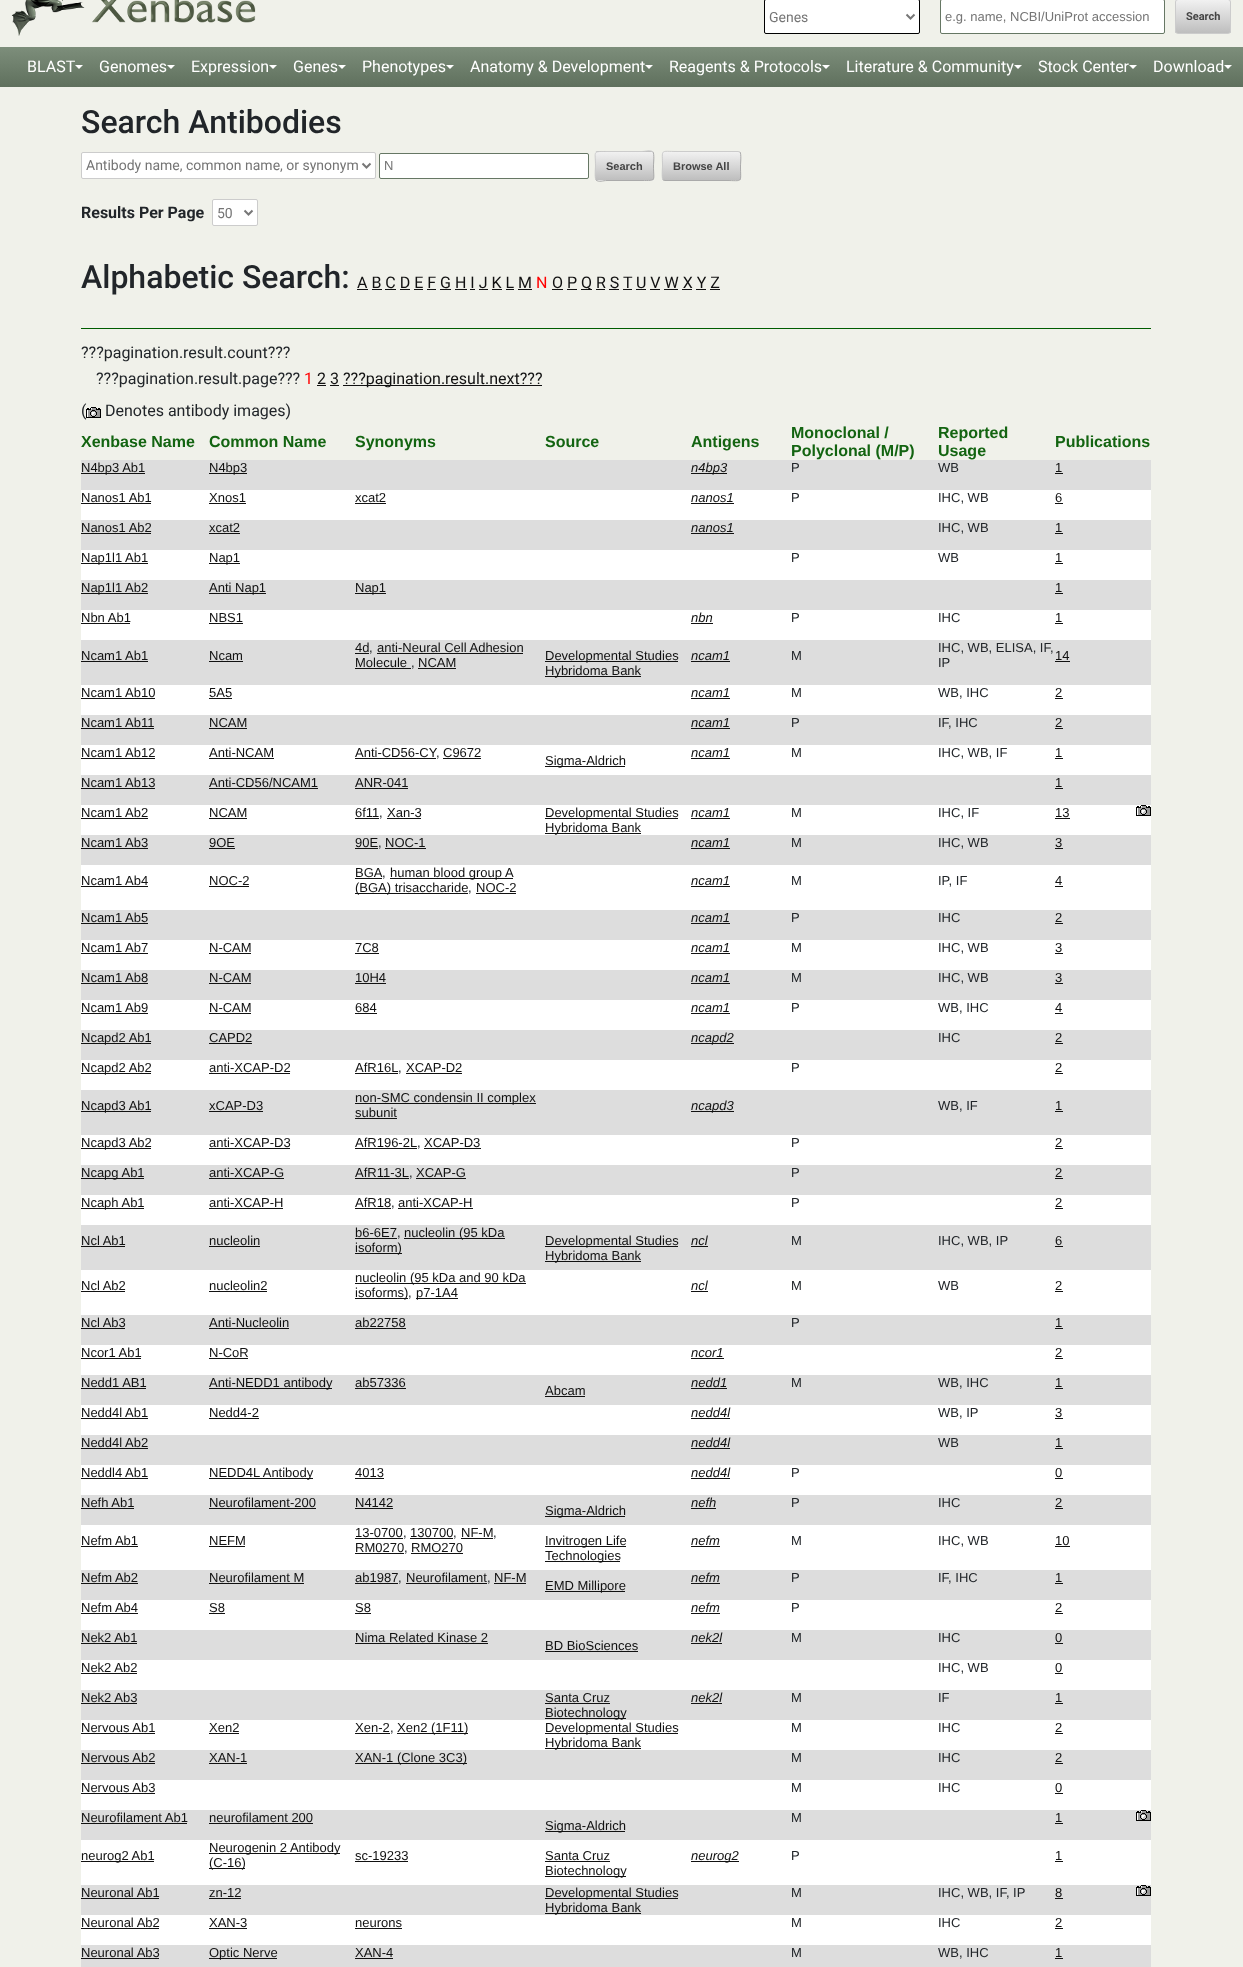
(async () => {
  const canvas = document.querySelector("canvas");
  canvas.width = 1243;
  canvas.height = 1967;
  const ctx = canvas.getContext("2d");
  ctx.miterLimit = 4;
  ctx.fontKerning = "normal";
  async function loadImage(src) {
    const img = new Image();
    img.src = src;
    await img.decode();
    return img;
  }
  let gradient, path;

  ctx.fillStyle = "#f0f1ea";
  ctx.fillRect(0, 0, 1243, 1967);
  ctx.drawImage(await loadImage("img/1.png"), 11, 0, 245, 36);
  ctx.fillStyle = "#ffffff";
  ctx.beginPath();
  ctx.roundRect(764.5, -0.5, 155, 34, 1.5);
  ctx.fill();
  ctx.strokeStyle = "#000000";
  ctx.stroke();
  path = new Path2D("M906.5 14.5L910.5 18.5L914.5 14.5");
  ctx.strokeStyle = "#777777";
  ctx.lineWidth = 2;
  ctx.stroke(path);
  ctx.beginPath();
  ctx.roundRect(940.5, -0.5, 224, 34, 1.5);
  ctx.fill();
  ctx.strokeStyle = "#667764";
  ctx.lineWidth = 1;
  ctx.stroke();
  ctx.save();
  ctx.beginPath();
  ctx.roundRect(1175, -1, 56, 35, 3);
  ctx.clip();
  gradient = ctx.createLinearGradient(1203, 0, 1203, 33);
  gradient.addColorStop(0, "#f1f1f1");
  gradient.addColorStop(1, "#bebebe");
  ctx.fillStyle = gradient;
  ctx.fillRect(1175, 0, 56, 33);
  ctx.restore();
  ctx.beginPath();
  ctx.roundRect(1175.5, -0.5, 55, 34, 2.5);
  ctx.strokeStyle = "#cccccc";
  ctx.stroke();
  gradient = ctx.createLinearGradient(622, 47, 622, 87);
  gradient.addColorStop(0, "#7d8e7b");
  gradient.addColorStop(1, "#5f705d");
  ctx.fillStyle = gradient;
  ctx.fillRect(0, 47, 1243, 40);
  ctx.fillStyle = "#ffffff";
  path = new Path2D("M75 65H83L79 69Z");
  ctx.fill(path);
  path = new Path2D("M167 65H175L171 69Z");
  ctx.fill(path);
  path = new Path2D("M269 65H277L273 69Z");
  ctx.fill(path);
  path = new Path2D("M338 65H346L342 69Z");
  ctx.fill(path);
  path = new Path2D("M446 65H454L450 69Z");
  ctx.fill(path);
  path = new Path2D("M645 65H653L649 69Z");
  ctx.fill(path);
  path = new Path2D("M822 65H830L826 69Z");
  ctx.fill(path);
  path = new Path2D("M1014 65H1022L1018 69Z");
  ctx.fill(path);
  path = new Path2D("M1129 65H1137L1133 69Z");
  ctx.fill(path);
  path = new Path2D("M1224 65H1232L1228 69Z");
  ctx.fill(path);
  ctx.beginPath();
  ctx.roundRect(81.5, 152.5, 294, 26, 1.5);
  ctx.fill();
  ctx.stroke();
  path = new Path2D("M362.5 163.5L366.5 167.5L370.5 163.5");
  ctx.strokeStyle = "#777777";
  ctx.lineWidth = 2;
  ctx.stroke(path);
  ctx.beginPath();
  ctx.roundRect(379.5, 153.5, 209, 25, 1.5);
  ctx.fill();
  ctx.strokeStyle = "#667764";
  ctx.lineWidth = 1;
  ctx.stroke();
  ctx.save();
  ctx.beginPath();
  ctx.roundRect(595, 151, 59, 30, 3);
  ctx.clip();
  gradient = ctx.createLinearGradient(625, 124, 625, 152);
  gradient.addColorStop(0, "#f1f1f1");
  gradient.addColorStop(1, "#bebebe");
  ctx.fillStyle = gradient;
  ctx.fillRect(595, 151, 59, 1);
  gradient = ctx.createLinearGradient(625, 152, 625, 180);
  gradient.addColorStop(0, "#f1f1f1");
  gradient.addColorStop(1, "#bebebe");
  ctx.fillStyle = gradient;
  ctx.fillRect(595, 152, 59, 28);
  gradient = ctx.createLinearGradient(625, 180, 625, 208);
  gradient.addColorStop(0, "#f1f1f1");
  gradient.addColorStop(1, "#bebebe");
  ctx.fillStyle = gradient;
  ctx.fillRect(595, 180, 59, 1);
  ctx.restore();
  path = new Path2D("M653 152C654.5 154 653.5 163.5 653.5 166C653.5 181.5 657 180.5 642 180.5H607C603 180.5 599 182.5 596 180");
  ctx.strokeStyle = "#aaaaaa";
  ctx.stroke(path);
  path = new Path2D("M596 180C594.5 178 595.5 168.5 595.5 166C595.5 150.5 592 151.5 607 151.5H642C646 151.5 650 149.5 653 152");
  ctx.strokeStyle = "#cccccc";
  ctx.stroke(path);
  ctx.save();
  ctx.beginPath();
  ctx.roundRect(662, 151, 79, 30, 3);
  ctx.clip();
  gradient = ctx.createLinearGradient(702, 152, 702, 180);
  gradient.addColorStop(0, "#f1f1f1");
  gradient.addColorStop(1, "#bebebe");
  ctx.fillStyle = gradient;
  ctx.fillRect(662, 152, 79, 28);
  ctx.restore();
  path = new Path2D("M740 152C741.5 154 740.5 163.5 740.5 166C740.5 183.5 743.5 180.5 726 180.5H665L663 180");
  ctx.strokeStyle = "#aaaaaa";
  ctx.stroke(path);
  path = new Path2D("M663 180C661.5 178 662.5 168.5 662.5 166C662.5 148.5 659.5 151.5 677 151.5H738L740 152");
  ctx.strokeStyle = "#cccccc";
  ctx.stroke(path);
  ctx.beginPath();
  ctx.roundRect(212.5, 199.5, 45, 26, 1.5);
  ctx.fill();
  ctx.stroke();
  path = new Path2D("M244.5 210.5L248.5 214.5L252.5 210.5");
  ctx.strokeStyle = "#777777";
  ctx.lineWidth = 2;
  ctx.stroke(path);
  for (const [x, y, w, h, color] of [
    [357, 289, 11, 1, "#111111"],
    [552, 289, 11, 1, "#111111"],
    [581, 289, 11, 1, "#111111"],
    [623, 289, 9, 1, "#111111"],
    [636, 289, 10, 1, "#111111"],
    [372, 289, 10, 1, "#111111"],
    [385, 289, 11, 1, "#111111"],
    [400, 289, 10, 1, "#111111"],
    [414, 289, 9, 1, "#111111"],
    [427, 289, 9, 1, "#111111"],
    [440, 289, 11, 1, "#111111"],
    [455, 289, 12, 1, "#111111"],
    [470, 289, 5, 1, "#111111"],
    [479, 289, 9, 1, "#111111"],
    [492, 289, 10, 1, "#111111"],
    [506, 289, 8, 1, "#111111"],
    [518, 289, 14, 1, "#111111"],
    [567, 289, 10, 1, "#111111"],
    [596, 289, 9, 1, "#111111"],
    [609, 289, 10, 1, "#111111"],
    [650, 289, 10, 1, "#111111"],
    [664, 289, 14, 1, "#111111"],
    [682, 289, 10, 1, "#111111"],
    [696, 289, 10, 1, "#111111"],
    [710, 289, 10, 1, "#111111"],
    [81, 328, 1070, 1, "#005c00"],
    [317, 385, 9, 1, "#111111"],
    [343, 385, 199, 1, "#111111"],
    [330, 385, 9, 1, "#111111"],
  ]) {
    ctx.fillStyle = color;
    ctx.fillRect(x, y, w, h);
  }
  ctx.drawImage(await loadImage("img/2.png"), 86, 407, 15, 11);
  for (const [x, y, w, h, color] of [
    [81, 460, 1070, 30, "#dddddd"],
    [81, 473, 64, 1, "#111111"],
    [209, 473, 38, 1, "#111111"],
    [691, 473, 36, 1, "#111111"],
    [1055, 473, 8, 1, "#111111"],
    [81, 490, 1070, 30, "#ffffff"],
    [81, 503, 70, 1, "#111111"],
    [209, 503, 37, 1, "#111111"],
    [355, 503, 31, 1, "#111111"],
    [691, 503, 43, 1, "#111111"],
    [1055, 503, 8, 1, "#111111"],
    [81, 520, 1070, 30, "#dddddd"],
    [81, 533, 70, 1, "#111111"],
    [209, 533, 31, 1, "#111111"],
    [691, 533, 43, 1, "#111111"],
    [1055, 533, 8, 1, "#111111"],
    [81, 550, 1070, 30, "#ffffff"],
    [81, 563, 67, 1, "#111111"],
    [209, 563, 31, 1, "#111111"],
    [1055, 563, 8, 1, "#111111"],
    [81, 580, 1070, 30, "#dddddd"],
    [81, 593, 67, 1, "#111111"],
    [209, 593, 57, 1, "#111111"],
    [355, 593, 31, 1, "#111111"],
    [1055, 593, 8, 1, "#111111"],
    [81, 610, 1070, 30, "#ffffff"],
    [81, 623, 49, 1, "#111111"],
    [209, 623, 34, 1, "#111111"],
    [691, 623, 22, 1, "#111111"],
    [1055, 623, 8, 1, "#111111"],
    [81, 640, 1070, 45, "#dddddd"],
    [81, 661, 67, 1, "#111111"],
    [209, 661, 34, 1, "#111111"],
    [355, 653, 14, 1, "#111111"],
    [377, 653, 146, 1, "#111111"],
    [355, 668, 56, 1, "#111111"],
    [418, 668, 38, 1, "#111111"],
    [545, 661, 133, 1, "#111111"],
    [545, 676, 96, 1, "#111111"],
    [691, 661, 39, 1, "#111111"],
    [1055, 661, 15, 1, "#111111"],
    [81, 685, 1070, 30, "#ffffff"],
    [81, 698, 74, 1, "#111111"],
    [209, 698, 23, 1, "#111111"],
    [691, 698, 39, 1, "#111111"],
    [1055, 698, 8, 1, "#111111"],
    [81, 715, 1070, 30, "#dddddd"],
    [81, 728, 73, 1, "#111111"],
    [209, 728, 38, 1, "#111111"],
    [691, 728, 39, 1, "#111111"],
    [1055, 728, 8, 1, "#111111"],
    [81, 745, 1070, 30, "#ffffff"],
    [81, 758, 74, 1, "#111111"],
    [209, 758, 65, 1, "#111111"],
    [355, 758, 81, 1, "#111111"],
    [443, 758, 38, 1, "#111111"],
    [691, 758, 39, 1, "#111111"],
    [1055, 758, 8, 1, "#111111"],
    [545, 766, 80, 1, "#111111"],
    [81, 775, 1070, 30, "#dddddd"],
    [81, 788, 74, 1, "#111111"],
    [209, 788, 109, 1, "#111111"],
    [355, 788, 53, 1, "#111111"],
    [1055, 788, 8, 1, "#111111"],
    [81, 805, 1070, 30, "#ffffff"],
    [81, 818, 67, 1, "#111111"],
    [209, 818, 38, 1, "#111111"],
    [355, 818, 24, 1, "#111111"],
    [387, 818, 34, 1, "#111111"],
    [545, 818, 133, 1, "#111111"],
    [545, 833, 96, 1, "#111111"],
    [691, 818, 39, 1, "#111111"],
    [1055, 818, 15, 1, "#111111"],
  ]) {
    ctx.fillStyle = color;
    ctx.fillRect(x, y, w, h);
  }
  ctx.drawImage(await loadImage("img/3.png"), 1136, 805, 15, 11);
  for (const [x, y, w, h, color] of [
    [81, 835, 1070, 30, "#dddddd"],
    [81, 848, 67, 1, "#111111"],
    [209, 848, 26, 1, "#111111"],
    [355, 848, 23, 1, "#111111"],
    [385, 848, 41, 1, "#111111"],
    [691, 848, 39, 1, "#111111"],
    [1055, 848, 8, 1, "#111111"],
    [81, 865, 1070, 45, "#ffffff"],
    [81, 886, 67, 1, "#111111"],
    [209, 886, 40, 1, "#111111"],
    [355, 878, 27, 1, "#111111"],
    [390, 878, 123, 1, "#111111"],
    [355, 893, 113, 1, "#111111"],
    [476, 893, 40, 1, "#111111"],
    [691, 886, 39, 1, "#111111"],
    [1055, 886, 8, 1, "#111111"],
    [81, 910, 1070, 30, "#dddddd"],
    [81, 923, 67, 1, "#111111"],
    [691, 923, 39, 1, "#111111"],
    [1055, 923, 8, 1, "#111111"],
    [81, 940, 1070, 30, "#ffffff"],
    [81, 953, 67, 1, "#111111"],
    [209, 953, 42, 1, "#111111"],
    [355, 953, 24, 1, "#111111"],
    [691, 953, 39, 1, "#111111"],
    [1055, 953, 8, 1, "#111111"],
    [81, 970, 1070, 30, "#dddddd"],
    [81, 983, 67, 1, "#111111"],
    [209, 983, 42, 1, "#111111"],
    [355, 983, 31, 1, "#111111"],
    [691, 983, 39, 1, "#111111"],
    [1055, 983, 8, 1, "#111111"],
    [81, 1000, 1070, 30, "#ffffff"],
    [81, 1013, 67, 1, "#111111"],
    [209, 1013, 42, 1, "#111111"],
    [355, 1013, 22, 1, "#111111"],
    [691, 1013, 39, 1, "#111111"],
    [1055, 1013, 8, 1, "#111111"],
    [81, 1030, 1070, 30, "#dddddd"],
    [81, 1043, 70, 1, "#111111"],
    [209, 1043, 43, 1, "#111111"],
    [691, 1043, 43, 1, "#111111"],
    [1055, 1043, 8, 1, "#111111"],
    [81, 1060, 1070, 30, "#ffffff"],
    [81, 1073, 70, 1, "#111111"],
    [209, 1073, 81, 1, "#111111"],
    [355, 1073, 43, 1, "#111111"],
    [406, 1073, 56, 1, "#111111"],
    [1055, 1073, 8, 1, "#111111"],
    [81, 1090, 1070, 45, "#dddddd"],
    [81, 1111, 70, 1, "#111111"],
    [209, 1111, 54, 1, "#111111"],
    [355, 1103, 181, 1, "#111111"],
    [355, 1118, 42, 1, "#111111"],
    [691, 1111, 43, 1, "#111111"],
    [1055, 1111, 8, 1, "#111111"],
    [81, 1135, 1070, 30, "#ffffff"],
    [81, 1148, 70, 1, "#111111"],
    [209, 1148, 81, 1, "#111111"],
    [355, 1148, 62, 1, "#111111"],
    [424, 1148, 57, 1, "#111111"],
    [1055, 1148, 8, 1, "#111111"],
    [81, 1165, 1070, 30, "#dddddd"],
    [81, 1178, 63, 1, "#111111"],
    [209, 1178, 75, 1, "#111111"],
    [355, 1178, 54, 1, "#111111"],
    [416, 1178, 50, 1, "#111111"],
    [1055, 1178, 8, 1, "#111111"],
    [81, 1195, 1070, 30, "#ffffff"],
    [81, 1208, 63, 1, "#111111"],
    [209, 1208, 74, 1, "#111111"],
    [355, 1208, 36, 1, "#111111"],
    [398, 1208, 75, 1, "#111111"],
    [1055, 1208, 8, 1, "#111111"],
    [81, 1225, 1070, 45, "#dddddd"],
    [81, 1246, 44, 1, "#111111"],
    [209, 1246, 51, 1, "#111111"],
    [355, 1238, 42, 1, "#111111"],
    [404, 1238, 101, 1, "#111111"],
    [355, 1253, 47, 1, "#111111"],
    [545, 1246, 133, 1, "#111111"],
    [545, 1261, 96, 1, "#111111"],
    [691, 1246, 17, 1, "#111111"],
    [1055, 1246, 8, 1, "#111111"],
    [81, 1270, 1070, 45, "#ffffff"],
    [81, 1291, 44, 1, "#111111"],
    [209, 1291, 58, 1, "#111111"],
    [355, 1283, 171, 1, "#111111"],
    [355, 1298, 53, 1, "#111111"],
    [416, 1298, 42, 1, "#111111"],
    [691, 1291, 17, 1, "#111111"],
    [1055, 1291, 8, 1, "#111111"],
    [81, 1315, 1070, 30, "#dddddd"],
    [81, 1328, 44, 1, "#111111"],
    [209, 1328, 80, 1, "#111111"],
    [355, 1328, 51, 1, "#111111"],
    [1055, 1328, 8, 1, "#111111"],
    [81, 1345, 1070, 30, "#ffffff"],
    [81, 1358, 60, 1, "#111111"],
    [209, 1358, 39, 1, "#111111"],
    [691, 1358, 33, 1, "#111111"],
    [1055, 1358, 8, 1, "#111111"],
    [81, 1375, 1070, 30, "#dddddd"],
    [81, 1388, 65, 1, "#111111"],
    [209, 1388, 123, 1, "#111111"],
    [355, 1388, 51, 1, "#111111"],
    [691, 1388, 36, 1, "#111111"],
    [1055, 1388, 8, 1, "#111111"],
    [545, 1396, 40, 1, "#111111"],
    [81, 1405, 1070, 30, "#ffffff"],
    [81, 1418, 67, 1, "#111111"],
    [209, 1418, 50, 1, "#111111"],
    [691, 1418, 39, 1, "#111111"],
    [1055, 1418, 8, 1, "#111111"],
    [81, 1435, 1070, 30, "#dddddd"],
    [81, 1448, 67, 1, "#111111"],
    [691, 1448, 39, 1, "#111111"],
    [1055, 1448, 8, 1, "#111111"],
    [81, 1465, 1070, 30, "#ffffff"],
    [81, 1478, 67, 1, "#111111"],
    [209, 1478, 104, 1, "#111111"],
    [355, 1478, 29, 1, "#111111"],
    [691, 1478, 39, 1, "#111111"],
    [1055, 1478, 8, 1, "#111111"],
    [81, 1495, 1070, 30, "#dddddd"],
    [81, 1508, 53, 1, "#111111"],
    [209, 1508, 107, 1, "#111111"],
    [355, 1508, 38, 1, "#111111"],
    [691, 1508, 25, 1, "#111111"],
    [1055, 1508, 8, 1, "#111111"],
    [545, 1516, 80, 1, "#111111"],
    [81, 1525, 1070, 45, "#ffffff"],
    [81, 1546, 57, 1, "#111111"],
    [209, 1546, 36, 1, "#111111"],
    [355, 1538, 48, 1, "#111111"],
    [410, 1538, 43, 1, "#111111"],
    [461, 1538, 32, 1, "#111111"],
    [355, 1553, 49, 1, "#111111"],
    [411, 1553, 52, 1, "#111111"],
    [545, 1546, 81, 1, "#111111"],
    [545, 1561, 75, 1, "#111111"],
    [691, 1546, 29, 1, "#111111"],
    [1055, 1546, 15, 1, "#111111"],
    [81, 1570, 1070, 30, "#dddddd"],
    [81, 1583, 57, 1, "#111111"],
    [209, 1583, 95, 1, "#111111"],
    [355, 1583, 43, 1, "#111111"],
    [406, 1583, 81, 1, "#111111"],
    [494, 1583, 32, 1, "#111111"],
    [691, 1583, 29, 1, "#111111"],
    [1055, 1583, 8, 1, "#111111"],
    [545, 1591, 80, 1, "#111111"],
    [81, 1600, 1070, 30, "#ffffff"],
    [81, 1613, 57, 1, "#111111"],
    [209, 1613, 16, 1, "#111111"],
    [355, 1613, 16, 1, "#111111"],
    [691, 1613, 29, 1, "#111111"],
    [1055, 1613, 8, 1, "#111111"],
    [81, 1630, 1070, 30, "#dddddd"],
    [81, 1643, 56, 1, "#111111"],
    [355, 1643, 133, 1, "#111111"],
    [691, 1643, 31, 1, "#111111"],
    [1055, 1643, 8, 1, "#111111"],
    [545, 1651, 93, 1, "#111111"],
    [81, 1660, 1070, 30, "#ffffff"],
    [81, 1673, 56, 1, "#111111"],
    [1055, 1673, 8, 1, "#111111"],
    [81, 1690, 1070, 30, "#dddddd"],
    [81, 1703, 56, 1, "#111111"],
    [545, 1703, 65, 1, "#111111"],
    [545, 1718, 81, 1, "#111111"],
    [691, 1703, 31, 1, "#111111"],
    [1055, 1703, 8, 1, "#111111"],
    [81, 1720, 1070, 30, "#ffffff"],
    [81, 1733, 74, 1, "#111111"],
    [209, 1733, 30, 1, "#111111"],
    [355, 1733, 35, 1, "#111111"],
    [397, 1733, 71, 1, "#111111"],
    [545, 1733, 133, 1, "#111111"],
    [545, 1748, 96, 1, "#111111"],
    [1055, 1733, 8, 1, "#111111"],
    [81, 1750, 1070, 30, "#dddddd"],
    [81, 1763, 74, 1, "#111111"],
    [209, 1763, 38, 1, "#111111"],
    [355, 1763, 112, 1, "#111111"],
    [1055, 1763, 8, 1, "#111111"],
    [81, 1780, 1070, 30, "#ffffff"],
    [81, 1793, 74, 1, "#111111"],
    [1055, 1793, 8, 1, "#111111"],
    [81, 1810, 1070, 30, "#dddddd"],
    [81, 1823, 106, 1, "#111111"],
    [209, 1823, 104, 1, "#111111"],
    [1055, 1823, 8, 1, "#111111"],
  ]) {
    ctx.fillStyle = color;
    ctx.fillRect(x, y, w, h);
  }
  ctx.drawImage(await loadImage("img/4.png"), 1136, 1810, 15, 11);
  for (const [x, y, w, h, color] of [
    [545, 1831, 80, 1, "#111111"],
    [81, 1840, 1070, 45, "#ffffff"],
    [81, 1861, 73, 1, "#111111"],
    [209, 1853, 131, 1, "#111111"],
    [209, 1868, 36, 1, "#111111"],
    [355, 1861, 53, 1, "#111111"],
    [545, 1861, 65, 1, "#111111"],
    [545, 1876, 81, 1, "#111111"],
    [691, 1861, 48, 1, "#111111"],
    [1055, 1861, 8, 1, "#111111"],
    [81, 1885, 1070, 30, "#dddddd"],
    [81, 1898, 78, 1, "#111111"],
    [209, 1898, 32, 1, "#111111"],
    [545, 1898, 133, 1, "#111111"],
    [545, 1913, 96, 1, "#111111"],
    [1055, 1898, 8, 1, "#111111"],
  ]) {
    ctx.fillStyle = color;
    ctx.fillRect(x, y, w, h);
  }
  ctx.drawImage(await loadImage("img/4.png"), 1136, 1885, 15, 11);
  for (const [x, y, w, h, color] of [
    [81, 1915, 1070, 30, "#ffffff"],
    [81, 1928, 78, 1, "#111111"],
    [209, 1928, 38, 1, "#111111"],
    [355, 1928, 47, 1, "#111111"],
    [1055, 1928, 8, 1, "#111111"],
    [81, 1945, 1070, 22, "#dddddd"],
    [81, 1958, 78, 1, "#111111"],
    [209, 1958, 68, 1, "#111111"],
    [355, 1958, 38, 1, "#111111"],
    [1055, 1958, 8, 1, "#111111"],
  ]) {
    ctx.fillStyle = color;
    ctx.fillRect(x, y, w, h);
  }
  ctx.font = "14px Roboto";
  ctx.fillStyle = "#757575";
  ctx.fillText("Genes", 769, 22);
  ctx.font = "13px Liberation Sans";
  ctx.fillText("e.g. name, NCBI/UniProt accession", 945, 21);
  ctx.font = "bold 11px Roboto";
  ctx.fillStyle = "#444444";
  ctx.fillText("Search", 1186, 20);
  ctx.font = "16px Roboto";
  ctx.fillStyle = "#ffffff";
  for (const [text, x, y] of [
    ["BLAST", 27, 72],
    ["Genomes", 99, 72],
    ["Expression", 191, 72],
    ["Genes", 293, 72],
    ["Phenotypes", 362, 72],
    ["Anatomy & Development", 470, 72],
    ["Reagents & Protocols", 669, 72],
    ["Literature & Community", 846, 72],
    ["Stock Center", 1038, 72],
    ["Download", 1153, 72],
  ]) {
    ctx.fillText(text, x, y);
  }
  ctx.font = "500 32px Roboto";
  ctx.fillStyle = "#212529";
  ctx.fillText("Search Antibodies", 81, 133);
  ctx.font = "14px Roboto";
  ctx.fillStyle = "#757575";
  ctx.fillText("Antibody name, common name, or synonym", 86, 170);
  ctx.font = "13px Liberation Sans";
  ctx.fillText("N", 384, 170);
  ctx.font = "bold 11px Liberation Sans";
  ctx.fillStyle = "#444444";
  ctx.fillText("Search", 606, 170);
  ctx.fillText("Browse All", 673, 170);
  ctx.font = "bold 16px Roboto";
  ctx.fillStyle = "#212529";
  ctx.fillText("Results Per Page", 81, 218);
  ctx.font = "14px Roboto";
  ctx.fillStyle = "#757575";
  ctx.fillText("50", 217, 218);
  ctx.font = "500 32px Roboto";
  ctx.fillStyle = "#212529";
  ctx.fillText("Alphabetic Search:", 81, 288);
  ctx.font = "16px Roboto";
  ctx.fillStyle = "#111111";
  ctx.fillText("A B C D E F G H I J K L M", 357, 288);
  ctx.fillStyle = "#ff0000";
  ctx.fillText("N", 536, 288);
  ctx.fillStyle = "#111111";
  for (const [text, x, y] of [
    ["O P", 552, 288],
    ["Q R S", 581, 288],
    ["T", 623, 288],
    ["U V W X Y Z", 636, 288],
  ]) {
    ctx.fillText(text, x, y);
  }
  ctx.fillStyle = "#212529";
  ctx.fillText("???pagination.result.count???", 81, 358);
  ctx.fillText("???pagination.result.page???", 96, 384);
  ctx.fillStyle = "#ff0000";
  ctx.fillText("1", 304, 384);
  ctx.fillStyle = "#111111";
  ctx.fillText("2 3", 317, 384);
  ctx.fillText("???pagination.result.next???", 343, 384);
  ctx.fillStyle = "#212529";
  ctx.fillText("(", 81, 416);
  ctx.fillText("Denotes antibody images)", 105, 416);
  ctx.font = "bold 16px Liberation Sans";
  ctx.fillStyle = "#136411";
  for (const [text, x, y] of [
    ["Xenbase Name", 81, 447],
    ["Common Name", 209, 447],
    ["Synonyms", 355, 447],
    ["Source", 545, 447],
    ["Antigens", 691, 447],
    ["Monoclonal /", 791, 438],
    ["Polyclonal (M/P)", 791, 456],
    ["Reported", 938, 438],
    ["Usage", 938, 456],
    ["Publications", 1055, 447],
  ]) {
    ctx.fillText(text, x, y);
  }
  ctx.font = "13px Liberation Sans";
  ctx.fillStyle = "#111111";
  ctx.fillText("N4bp3 Ab1", 81, 472);
  ctx.fillText("N4bp3", 209, 472);
  ctx.font = "italic 13px Liberation Sans";
  ctx.fillText("n4bp3", 691, 472);
  ctx.font = "13px Liberation Sans";
  ctx.fillStyle = "#212529";
  ctx.fillText("P", 791, 472);
  ctx.fillText("WB", 938, 472);
  ctx.fillStyle = "#111111";
  for (const [text, x, y] of [
    ["1", 1055, 472],
    ["Nanos1 Ab1", 81, 502],
    ["Xnos1", 209, 502],
    ["xcat2", 355, 502],
  ]) {
    ctx.fillText(text, x, y);
  }
  ctx.font = "italic 13px Liberation Sans";
  ctx.fillText("nanos1", 691, 502);
  ctx.font = "13px Liberation Sans";
  ctx.fillStyle = "#212529";
  ctx.fillText("P", 791, 502);
  ctx.fillText("IHC, WB", 938, 502);
  ctx.fillStyle = "#111111";
  for (const [text, x, y] of [
    ["6", 1055, 502],
    ["Nanos1 Ab2", 81, 532],
    ["xcat2", 209, 532],
  ]) {
    ctx.fillText(text, x, y);
  }
  ctx.font = "italic 13px Liberation Sans";
  ctx.fillText("nanos1", 691, 532);
  ctx.font = "13px Liberation Sans";
  ctx.fillStyle = "#212529";
  ctx.fillText("IHC, WB", 938, 532);
  ctx.fillStyle = "#111111";
  for (const [text, x, y] of [
    ["1", 1055, 532],
    ["Nap1l1 Ab1", 81, 562],
    ["Nap1", 209, 562],
  ]) {
    ctx.fillText(text, x, y);
  }
  ctx.fillStyle = "#212529";
  ctx.fillText("P", 791, 562);
  ctx.fillText("WB", 938, 562);
  ctx.fillStyle = "#111111";
  for (const [text, x, y] of [
    ["1", 1055, 562],
    ["Nap1l1 Ab2", 81, 592],
    ["Anti Nap1", 209, 592],
    ["Nap1", 355, 592],
    ["1", 1055, 592],
    ["Nbn Ab1", 81, 622],
    ["NBS1", 209, 622],
  ]) {
    ctx.fillText(text, x, y);
  }
  ctx.font = "italic 13px Liberation Sans";
  ctx.fillText("nbn", 691, 622);
  ctx.font = "13px Liberation Sans";
  ctx.fillStyle = "#212529";
  ctx.fillText("P", 791, 622);
  ctx.fillText("IHC", 938, 622);
  ctx.fillStyle = "#111111";
  for (const [text, x, y] of [
    ["1", 1055, 622],
    ["Ncam1 Ab1", 81, 660],
    ["Ncam", 209, 660],
    ["4d", 355, 652],
  ]) {
    ctx.fillText(text, x, y);
  }
  ctx.fillStyle = "#212529";
  ctx.fillText(",", 369, 652);
  ctx.fillStyle = "#111111";
  ctx.fillText("anti-Neural Cell Adhesion", 377, 652);
  ctx.fillText("Molecule", 355, 667);
  ctx.fillStyle = "#212529";
  ctx.fillText(",", 411, 667);
  ctx.fillStyle = "#111111";
  for (const [text, x, y] of [
    ["NCAM", 418, 667],
    ["Developmental Studies", 545, 660],
    ["Hybridoma Bank", 545, 675],
  ]) {
    ctx.fillText(text, x, y);
  }
  ctx.font = "italic 13px Liberation Sans";
  ctx.fillText("ncam1", 691, 660);
  ctx.font = "13px Liberation Sans";
  ctx.fillStyle = "#212529";
  for (const [text, x, y] of [
    ["M", 791, 660],
    ["IHC, WB, ELISA, IF,", 938, 652],
    ["IP", 938, 667],
  ]) {
    ctx.fillText(text, x, y);
  }
  ctx.fillStyle = "#111111";
  for (const [text, x, y] of [
    ["14", 1055, 660],
    ["Ncam1 Ab10", 81, 697],
    ["5A5", 209, 697],
  ]) {
    ctx.fillText(text, x, y);
  }
  ctx.font = "italic 13px Liberation Sans";
  ctx.fillText("ncam1", 691, 697);
  ctx.font = "13px Liberation Sans";
  ctx.fillStyle = "#212529";
  ctx.fillText("M", 791, 697);
  ctx.fillText("WB, IHC", 938, 697);
  ctx.fillStyle = "#111111";
  for (const [text, x, y] of [
    ["2", 1055, 697],
    ["Ncam1 Ab11", 81, 727],
    ["NCAM", 209, 727],
  ]) {
    ctx.fillText(text, x, y);
  }
  ctx.font = "italic 13px Liberation Sans";
  ctx.fillText("ncam1", 691, 727);
  ctx.font = "13px Liberation Sans";
  ctx.fillStyle = "#212529";
  ctx.fillText("P", 791, 727);
  ctx.fillText("IF, IHC", 938, 727);
  ctx.fillStyle = "#111111";
  for (const [text, x, y] of [
    ["2", 1055, 727],
    ["Ncam1 Ab12", 81, 757],
    ["Anti-NCAM", 209, 757],
    ["Anti-CD56-CY", 355, 757],
  ]) {
    ctx.fillText(text, x, y);
  }
  ctx.fillStyle = "#212529";
  ctx.fillText(",", 436, 757);
  ctx.fillStyle = "#111111";
  ctx.fillText("C9672", 443, 757);
  ctx.font = "italic 13px Liberation Sans";
  ctx.fillText("ncam1", 691, 757);
  ctx.font = "13px Liberation Sans";
  ctx.fillStyle = "#212529";
  ctx.fillText("M", 791, 757);
  ctx.fillText("IHC, WB, IF", 938, 757);
  ctx.fillStyle = "#111111";
  for (const [text, x, y] of [
    ["1", 1055, 757],
    ["Sigma-Aldrich", 545, 765],
    ["Ncam1 Ab13", 81, 787],
    ["Anti-CD56/NCAM1", 209, 787],
    ["ANR-041", 355, 787],
    ["1", 1055, 787],
    ["Ncam1 Ab2", 81, 817],
    ["NCAM", 209, 817],
    ["6f11", 355, 817],
  ]) {
    ctx.fillText(text, x, y);
  }
  ctx.fillStyle = "#212529";
  ctx.fillText(",", 379, 817);
  ctx.fillStyle = "#111111";
  for (const [text, x, y] of [
    ["Xan-3", 387, 817],
    ["Developmental Studies", 545, 817],
    ["Hybridoma Bank", 545, 832],
  ]) {
    ctx.fillText(text, x, y);
  }
  ctx.font = "italic 13px Liberation Sans";
  ctx.fillText("ncam1", 691, 817);
  ctx.font = "13px Liberation Sans";
  ctx.fillStyle = "#212529";
  ctx.fillText("M", 791, 817);
  ctx.fillText("IHC, IF", 938, 817);
  ctx.fillStyle = "#111111";
  for (const [text, x, y] of [
    ["13", 1055, 817],
    ["Ncam1 Ab3", 81, 847],
    ["9OE", 209, 847],
    ["90E", 355, 847],
  ]) {
    ctx.fillText(text, x, y);
  }
  ctx.fillStyle = "#212529";
  ctx.fillText(",", 378, 847);
  ctx.fillStyle = "#111111";
  ctx.fillText("NOC-1", 385, 847);
  ctx.font = "italic 13px Liberation Sans";
  ctx.fillText("ncam1", 691, 847);
  ctx.font = "13px Liberation Sans";
  ctx.fillStyle = "#212529";
  ctx.fillText("M", 791, 847);
  ctx.fillText("IHC, WB", 938, 847);
  ctx.fillStyle = "#111111";
  for (const [text, x, y] of [
    ["3", 1055, 847],
    ["Ncam1 Ab4", 81, 885],
    ["NOC-2", 209, 885],
    ["BGA", 355, 877],
  ]) {
    ctx.fillText(text, x, y);
  }
  ctx.fillStyle = "#212529";
  ctx.fillText(",", 382, 877);
  ctx.fillStyle = "#111111";
  ctx.fillText("human blood group A", 390, 877);
  ctx.fillText("(BGA) trisaccharide", 355, 892);
  ctx.fillStyle = "#212529";
  ctx.fillText(",", 468, 892);
  ctx.fillStyle = "#111111";
  ctx.fillText("NOC-2", 476, 892);
  ctx.font = "italic 13px Liberation Sans";
  ctx.fillText("ncam1", 691, 885);
  ctx.font = "13px Liberation Sans";
  ctx.fillStyle = "#212529";
  ctx.fillText("M", 791, 885);
  ctx.fillText("IP, IF", 938, 885);
  ctx.fillStyle = "#111111";
  ctx.fillText("4", 1055, 885);
  ctx.fillText("Ncam1 Ab5", 81, 922);
  ctx.font = "italic 13px Liberation Sans";
  ctx.fillText("ncam1", 691, 922);
  ctx.font = "13px Liberation Sans";
  ctx.fillStyle = "#212529";
  ctx.fillText("P", 791, 922);
  ctx.fillText("IHC", 938, 922);
  ctx.fillStyle = "#111111";
  for (const [text, x, y] of [
    ["2", 1055, 922],
    ["Ncam1 Ab7", 81, 952],
    ["N-CAM", 209, 952],
    ["7C8", 355, 952],
  ]) {
    ctx.fillText(text, x, y);
  }
  ctx.font = "italic 13px Liberation Sans";
  ctx.fillText("ncam1", 691, 952);
  ctx.font = "13px Liberation Sans";
  ctx.fillStyle = "#212529";
  ctx.fillText("M", 791, 952);
  ctx.fillText("IHC, WB", 938, 952);
  ctx.fillStyle = "#111111";
  for (const [text, x, y] of [
    ["3", 1055, 952],
    ["Ncam1 Ab8", 81, 982],
    ["N-CAM", 209, 982],
    ["10H4", 355, 982],
  ]) {
    ctx.fillText(text, x, y);
  }
  ctx.font = "italic 13px Liberation Sans";
  ctx.fillText("ncam1", 691, 982);
  ctx.font = "13px Liberation Sans";
  ctx.fillStyle = "#212529";
  ctx.fillText("M", 791, 982);
  ctx.fillText("IHC, WB", 938, 982);
  ctx.fillStyle = "#111111";
  for (const [text, x, y] of [
    ["3", 1055, 982],
    ["Ncam1 Ab9", 81, 1012],
    ["N-CAM", 209, 1012],
    ["684", 355, 1012],
  ]) {
    ctx.fillText(text, x, y);
  }
  ctx.font = "italic 13px Liberation Sans";
  ctx.fillText("ncam1", 691, 1012);
  ctx.font = "13px Liberation Sans";
  ctx.fillStyle = "#212529";
  ctx.fillText("P", 791, 1012);
  ctx.fillText("WB, IHC", 938, 1012);
  ctx.fillStyle = "#111111";
  for (const [text, x, y] of [
    ["4", 1055, 1012],
    ["Ncapd2 Ab1", 81, 1042],
    ["CAPD2", 209, 1042],
  ]) {
    ctx.fillText(text, x, y);
  }
  ctx.font = "italic 13px Liberation Sans";
  ctx.fillText("ncapd2", 691, 1042);
  ctx.font = "13px Liberation Sans";
  ctx.fillStyle = "#212529";
  ctx.fillText("IHC", 938, 1042);
  ctx.fillStyle = "#111111";
  for (const [text, x, y] of [
    ["2", 1055, 1042],
    ["Ncapd2 Ab2", 81, 1072],
    ["anti-XCAP-D2", 209, 1072],
    ["AfR16L", 355, 1072],
  ]) {
    ctx.fillText(text, x, y);
  }
  ctx.fillStyle = "#212529";
  ctx.fillText(",", 398, 1072);
  ctx.fillStyle = "#111111";
  ctx.fillText("XCAP-D2", 406, 1072);
  ctx.fillStyle = "#212529";
  ctx.fillText("P", 791, 1072);
  ctx.fillStyle = "#111111";
  for (const [text, x, y] of [
    ["2", 1055, 1072],
    ["Ncapd3 Ab1", 81, 1110],
    ["xCAP-D3", 209, 1110],
    ["non-SMC condensin II complex", 355, 1102],
    ["subunit", 355, 1117],
  ]) {
    ctx.fillText(text, x, y);
  }
  ctx.font = "italic 13px Liberation Sans";
  ctx.fillText("ncapd3", 691, 1110);
  ctx.font = "13px Liberation Sans";
  ctx.fillStyle = "#212529";
  ctx.fillText("WB, IF", 938, 1110);
  ctx.fillStyle = "#111111";
  for (const [text, x, y] of [
    ["1", 1055, 1110],
    ["Ncapd3 Ab2", 81, 1147],
    ["anti-XCAP-D3", 209, 1147],
    ["AfR196-2L", 355, 1147],
  ]) {
    ctx.fillText(text, x, y);
  }
  ctx.fillStyle = "#212529";
  ctx.fillText(",", 417, 1147);
  ctx.fillStyle = "#111111";
  ctx.fillText("XCAP-D3", 424, 1147);
  ctx.fillStyle = "#212529";
  ctx.fillText("P", 791, 1147);
  ctx.fillStyle = "#111111";
  for (const [text, x, y] of [
    ["2", 1055, 1147],
    ["Ncapg Ab1", 81, 1177],
    ["anti-XCAP-G", 209, 1177],
    ["AfR11-3L", 355, 1177],
  ]) {
    ctx.fillText(text, x, y);
  }
  ctx.fillStyle = "#212529";
  ctx.fillText(",", 409, 1177);
  ctx.fillStyle = "#111111";
  ctx.fillText("XCAP-G", 416, 1177);
  ctx.fillStyle = "#212529";
  ctx.fillText("P", 791, 1177);
  ctx.fillStyle = "#111111";
  for (const [text, x, y] of [
    ["2", 1055, 1177],
    ["Ncaph Ab1", 81, 1207],
    ["anti-XCAP-H", 209, 1207],
    ["AfR18", 355, 1207],
  ]) {
    ctx.fillText(text, x, y);
  }
  ctx.fillStyle = "#212529";
  ctx.fillText(",", 391, 1207);
  ctx.fillStyle = "#111111";
  ctx.fillText("anti-XCAP-H", 398, 1207);
  ctx.fillStyle = "#212529";
  ctx.fillText("P", 791, 1207);
  ctx.fillStyle = "#111111";
  for (const [text, x, y] of [
    ["2", 1055, 1207],
    ["Ncl Ab1", 81, 1245],
    ["nucleolin", 209, 1245],
    ["b6-6E7", 355, 1237],
  ]) {
    ctx.fillText(text, x, y);
  }
  ctx.fillStyle = "#212529";
  ctx.fillText(",", 397, 1237);
  ctx.fillStyle = "#111111";
  for (const [text, x, y] of [
    ["nucleolin (95 kDa", 404, 1237],
    ["isoform)", 355, 1252],
    ["Developmental Studies", 545, 1245],
    ["Hybridoma Bank", 545, 1260],
  ]) {
    ctx.fillText(text, x, y);
  }
  ctx.font = "italic 13px Liberation Sans";
  ctx.fillText("ncl", 691, 1245);
  ctx.font = "13px Liberation Sans";
  ctx.fillStyle = "#212529";
  ctx.fillText("M", 791, 1245);
  ctx.fillText("IHC, WB, IP", 938, 1245);
  ctx.fillStyle = "#111111";
  for (const [text, x, y] of [
    ["6", 1055, 1245],
    ["Ncl Ab2", 81, 1290],
    ["nucleolin2", 209, 1290],
    ["nucleolin (95 kDa and 90 kDa", 355, 1282],
    ["isoforms)", 355, 1297],
  ]) {
    ctx.fillText(text, x, y);
  }
  ctx.fillStyle = "#212529";
  ctx.fillText(",", 408, 1297);
  ctx.fillStyle = "#111111";
  ctx.fillText("p7-1A4", 416, 1297);
  ctx.font = "italic 13px Liberation Sans";
  ctx.fillText("ncl", 691, 1290);
  ctx.font = "13px Liberation Sans";
  ctx.fillStyle = "#212529";
  ctx.fillText("M", 791, 1290);
  ctx.fillText("WB", 938, 1290);
  ctx.fillStyle = "#111111";
  for (const [text, x, y] of [
    ["2", 1055, 1290],
    ["Ncl Ab3", 81, 1327],
    ["Anti-Nucleolin", 209, 1327],
    ["ab22758", 355, 1327],
  ]) {
    ctx.fillText(text, x, y);
  }
  ctx.fillStyle = "#212529";
  ctx.fillText("P", 791, 1327);
  ctx.fillStyle = "#111111";
  for (const [text, x, y] of [
    ["1", 1055, 1327],
    ["Ncor1 Ab1", 81, 1357],
    ["N-CoR", 209, 1357],
  ]) {
    ctx.fillText(text, x, y);
  }
  ctx.font = "italic 13px Liberation Sans";
  ctx.fillText("ncor1", 691, 1357);
  ctx.font = "13px Liberation Sans";
  for (const [text, x, y] of [
    ["2", 1055, 1357],
    ["Nedd1 AB1", 81, 1387],
    ["Anti-NEDD1 antibody", 209, 1387],
    ["ab57336", 355, 1387],
  ]) {
    ctx.fillText(text, x, y);
  }
  ctx.font = "italic 13px Liberation Sans";
  ctx.fillText("nedd1", 691, 1387);
  ctx.font = "13px Liberation Sans";
  ctx.fillStyle = "#212529";
  ctx.fillText("M", 791, 1387);
  ctx.fillText("WB, IHC", 938, 1387);
  ctx.fillStyle = "#111111";
  for (const [text, x, y] of [
    ["1", 1055, 1387],
    ["Abcam", 545, 1395],
    ["Nedd4l Ab1", 81, 1417],
    ["Nedd4-2", 209, 1417],
  ]) {
    ctx.fillText(text, x, y);
  }
  ctx.font = "italic 13px Liberation Sans";
  ctx.fillText("nedd4l", 691, 1417);
  ctx.font = "13px Liberation Sans";
  ctx.fillStyle = "#212529";
  ctx.fillText("WB, IP", 938, 1417);
  ctx.fillStyle = "#111111";
  ctx.fillText("3", 1055, 1417);
  ctx.fillText("Nedd4l Ab2", 81, 1447);
  ctx.font = "italic 13px Liberation Sans";
  ctx.fillText("nedd4l", 691, 1447);
  ctx.font = "13px Liberation Sans";
  ctx.fillStyle = "#212529";
  ctx.fillText("WB", 938, 1447);
  ctx.fillStyle = "#111111";
  for (const [text, x, y] of [
    ["1", 1055, 1447],
    ["Neddl4 Ab1", 81, 1477],
    ["NEDD4L Antibody", 209, 1477],
    ["4013", 355, 1477],
  ]) {
    ctx.fillText(text, x, y);
  }
  ctx.font = "italic 13px Liberation Sans";
  ctx.fillText("nedd4l", 691, 1477);
  ctx.font = "13px Liberation Sans";
  ctx.fillStyle = "#212529";
  ctx.fillText("P", 791, 1477);
  ctx.fillStyle = "#111111";
  for (const [text, x, y] of [
    ["0", 1055, 1477],
    ["Nefh Ab1", 81, 1507],
    ["Neurofilament-200", 209, 1507],
    ["N4142", 355, 1507],
  ]) {
    ctx.fillText(text, x, y);
  }
  ctx.font = "italic 13px Liberation Sans";
  ctx.fillText("nefh", 691, 1507);
  ctx.font = "13px Liberation Sans";
  ctx.fillStyle = "#212529";
  ctx.fillText("P", 791, 1507);
  ctx.fillText("IHC", 938, 1507);
  ctx.fillStyle = "#111111";
  for (const [text, x, y] of [
    ["2", 1055, 1507],
    ["Sigma-Aldrich", 545, 1515],
    ["Nefm Ab1", 81, 1545],
    ["NEFM", 209, 1545],
    ["13-0700", 355, 1537],
  ]) {
    ctx.fillText(text, x, y);
  }
  ctx.fillStyle = "#212529";
  ctx.fillText(",", 403, 1537);
  ctx.fillStyle = "#111111";
  ctx.fillText("130700", 410, 1537);
  ctx.fillStyle = "#212529";
  ctx.fillText(",", 453, 1537);
  ctx.fillStyle = "#111111";
  ctx.fillText("NF-M", 461, 1537);
  ctx.fillStyle = "#212529";
  ctx.fillText(",", 493, 1537);
  ctx.fillStyle = "#111111";
  ctx.fillText("RM0270", 355, 1552);
  ctx.fillStyle = "#212529";
  ctx.fillText(",", 404, 1552);
  ctx.fillStyle = "#111111";
  for (const [text, x, y] of [
    ["RMO270", 411, 1552],
    ["Invitrogen Life", 545, 1545],
    ["Technologies", 545, 1560],
  ]) {
    ctx.fillText(text, x, y);
  }
  ctx.font = "italic 13px Liberation Sans";
  ctx.fillText("nefm", 691, 1545);
  ctx.font = "13px Liberation Sans";
  ctx.fillStyle = "#212529";
  ctx.fillText("M", 791, 1545);
  ctx.fillText("IHC, WB", 938, 1545);
  ctx.fillStyle = "#111111";
  for (const [text, x, y] of [
    ["10", 1055, 1545],
    ["Nefm Ab2", 81, 1582],
    ["Neurofilament M", 209, 1582],
    ["ab1987", 355, 1582],
  ]) {
    ctx.fillText(text, x, y);
  }
  ctx.fillStyle = "#212529";
  ctx.fillText(",", 398, 1582);
  ctx.fillStyle = "#111111";
  ctx.fillText("Neurofilament", 406, 1582);
  ctx.fillStyle = "#212529";
  ctx.fillText(",", 487, 1582);
  ctx.fillStyle = "#111111";
  ctx.fillText("NF-M", 494, 1582);
  ctx.font = "italic 13px Liberation Sans";
  ctx.fillText("nefm", 691, 1582);
  ctx.font = "13px Liberation Sans";
  ctx.fillStyle = "#212529";
  ctx.fillText("P", 791, 1582);
  ctx.fillText("IF, IHC", 938, 1582);
  ctx.fillStyle = "#111111";
  for (const [text, x, y] of [
    ["1", 1055, 1582],
    ["EMD Millipore", 545, 1590],
    ["Nefm Ab4", 81, 1612],
    ["S8", 209, 1612],
    ["S8", 355, 1612],
  ]) {
    ctx.fillText(text, x, y);
  }
  ctx.font = "italic 13px Liberation Sans";
  ctx.fillText("nefm", 691, 1612);
  ctx.font = "13px Liberation Sans";
  ctx.fillStyle = "#212529";
  ctx.fillText("P", 791, 1612);
  ctx.fillStyle = "#111111";
  for (const [text, x, y] of [
    ["2", 1055, 1612],
    ["Nek2 Ab1", 81, 1642],
    ["Nima Related Kinase 2", 355, 1642],
  ]) {
    ctx.fillText(text, x, y);
  }
  ctx.font = "italic 13px Liberation Sans";
  ctx.fillText("nek2l", 691, 1642);
  ctx.font = "13px Liberation Sans";
  ctx.fillStyle = "#212529";
  ctx.fillText("M", 791, 1642);
  ctx.fillText("IHC", 938, 1642);
  ctx.fillStyle = "#111111";
  for (const [text, x, y] of [
    ["0", 1055, 1642],
    ["BD BioSciences", 545, 1650],
    ["Nek2 Ab2", 81, 1672],
  ]) {
    ctx.fillText(text, x, y);
  }
  ctx.fillStyle = "#212529";
  ctx.fillText("IHC, WB", 938, 1672);
  ctx.fillStyle = "#111111";
  for (const [text, x, y] of [
    ["0", 1055, 1672],
    ["Nek2 Ab3", 81, 1702],
    ["Santa Cruz", 545, 1702],
    ["Biotechnology", 545, 1717],
  ]) {
    ctx.fillText(text, x, y);
  }
  ctx.font = "italic 13px Liberation Sans";
  ctx.fillText("nek2l", 691, 1702);
  ctx.font = "13px Liberation Sans";
  ctx.fillStyle = "#212529";
  ctx.fillText("M", 791, 1702);
  ctx.fillText("IF", 938, 1702);
  ctx.fillStyle = "#111111";
  for (const [text, x, y] of [
    ["1", 1055, 1702],
    ["Nervous Ab1", 81, 1732],
    ["Xen2", 209, 1732],
    ["Xen-2", 355, 1732],
  ]) {
    ctx.fillText(text, x, y);
  }
  ctx.fillStyle = "#212529";
  ctx.fillText(",", 390, 1732);
  ctx.fillStyle = "#111111";
  for (const [text, x, y] of [
    ["Xen2 (1F11)", 397, 1732],
    ["Developmental Studies", 545, 1732],
    ["Hybridoma Bank", 545, 1747],
  ]) {
    ctx.fillText(text, x, y);
  }
  ctx.fillStyle = "#212529";
  ctx.fillText("M", 791, 1732);
  ctx.fillText("IHC", 938, 1732);
  ctx.fillStyle = "#111111";
  for (const [text, x, y] of [
    ["2", 1055, 1732],
    ["Nervous Ab2", 81, 1762],
    ["XAN-1", 209, 1762],
    ["XAN-1 (Clone 3C3)", 355, 1762],
  ]) {
    ctx.fillText(text, x, y);
  }
  ctx.fillStyle = "#212529";
  ctx.fillText("M", 791, 1762);
  ctx.fillText("IHC", 938, 1762);
  ctx.fillStyle = "#111111";
  ctx.fillText("2", 1055, 1762);
  ctx.fillText("Nervous Ab3", 81, 1792);
  ctx.fillStyle = "#212529";
  ctx.fillText("M", 791, 1792);
  ctx.fillText("IHC", 938, 1792);
  ctx.fillStyle = "#111111";
  for (const [text, x, y] of [
    ["0", 1055, 1792],
    ["Neurofilament Ab1", 81, 1822],
    ["neurofilament 200", 209, 1822],
  ]) {
    ctx.fillText(text, x, y);
  }
  ctx.fillStyle = "#212529";
  ctx.fillText("M", 791, 1822);
  ctx.fillStyle = "#111111";
  for (const [text, x, y] of [
    ["1", 1055, 1822],
    ["Sigma-Aldrich", 545, 1830],
    ["neurog2 Ab1", 81, 1860],
    ["Neurogenin 2 Antibody", 209, 1852],
    ["(C-16)", 209, 1867],
    ["sc-19233", 355, 1860],
    ["Santa Cruz", 545, 1860],
    ["Biotechnology", 545, 1875],
  ]) {
    ctx.fillText(text, x, y);
  }
  ctx.font = "italic 13px Liberation Sans";
  ctx.fillText("neurog2", 691, 1860);
  ctx.font = "13px Liberation Sans";
  ctx.fillStyle = "#212529";
  ctx.fillText("P", 791, 1860);
  ctx.fillStyle = "#111111";
  for (const [text, x, y] of [
    ["1", 1055, 1860],
    ["Neuronal Ab1", 81, 1897],
    ["zn-12", 209, 1897],
    ["Developmental Studies", 545, 1897],
    ["Hybridoma Bank", 545, 1912],
  ]) {
    ctx.fillText(text, x, y);
  }
  ctx.fillStyle = "#212529";
  ctx.fillText("M", 791, 1897);
  ctx.fillText("IHC, WB, IF, IP", 938, 1897);
  ctx.fillStyle = "#111111";
  for (const [text, x, y] of [
    ["8", 1055, 1897],
    ["Neuronal Ab2", 81, 1927],
    ["XAN-3", 209, 1927],
    ["neurons", 355, 1927],
  ]) {
    ctx.fillText(text, x, y);
  }
  ctx.fillStyle = "#212529";
  ctx.fillText("M", 791, 1927);
  ctx.fillText("IHC", 938, 1927);
  ctx.fillStyle = "#111111";
  for (const [text, x, y] of [
    ["2", 1055, 1927],
    ["Neuronal Ab3", 81, 1957],
    ["Optic Nerve", 209, 1957],
    ["XAN-4", 355, 1957],
  ]) {
    ctx.fillText(text, x, y);
  }
  ctx.fillStyle = "#212529";
  ctx.fillText("M", 791, 1957);
  ctx.fillText("WB, IHC", 938, 1957);
  ctx.fillStyle = "#111111";
  ctx.fillText("1", 1055, 1957);
})();
